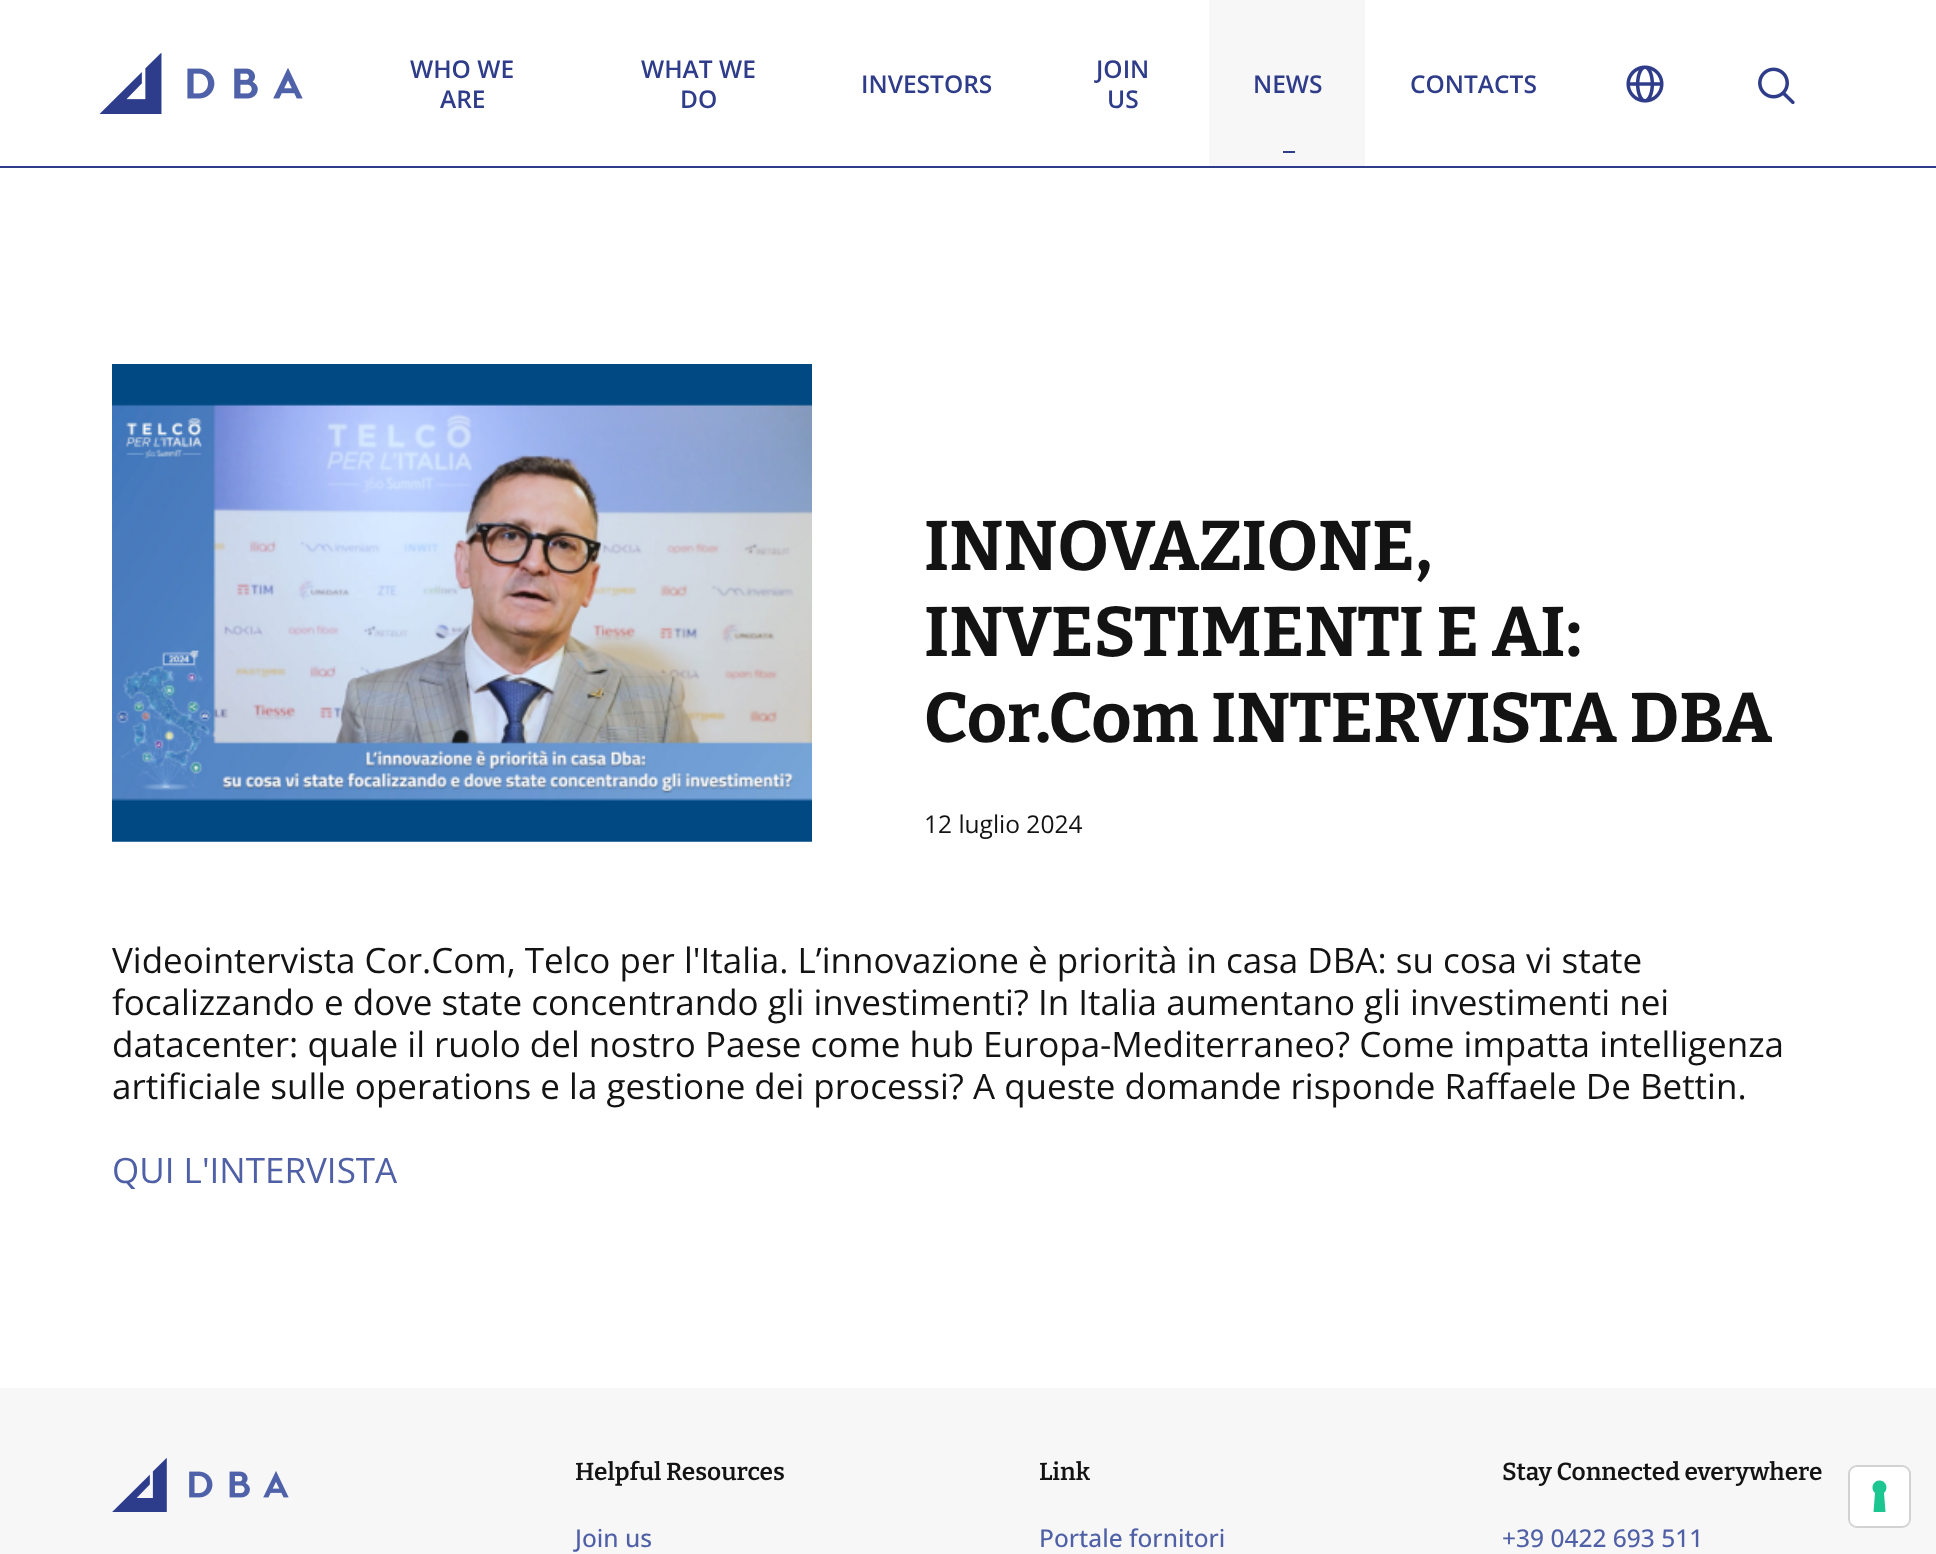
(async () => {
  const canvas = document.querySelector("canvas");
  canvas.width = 1936;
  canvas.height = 1554;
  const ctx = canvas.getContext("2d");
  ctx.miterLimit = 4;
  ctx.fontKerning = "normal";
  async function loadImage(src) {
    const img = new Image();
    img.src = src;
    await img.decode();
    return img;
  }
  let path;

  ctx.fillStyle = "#ffffff";
  ctx.fillRect(0, 0, 1936, 1554);
  ctx.fillStyle = "#2e3c89";
  ctx.fillRect(0, 166, 1936, 2);
  ctx.drawImage(await loadImage("img/1.png"), 99, 53, 204, 61);
  ctx.fillStyle = "#f7f7f7";
  ctx.fillRect(1209, 0, 156, 166);
  ctx.fillStyle = "#2e3c89";
  ctx.fillRect(1283, 151, 12, 2);
  ctx.drawImage(await loadImage("img/2.png"), 1626, 65, 38, 38);
  ctx.drawImage(await loadImage("img/3.png"), 1758, 67, 37, 38);
  ctx.drawImage(await loadImage("img/4.png"), 112, 364, 700, 478);
  ctx.fillStyle = "#f7f7f7";
  ctx.fillRect(0, 1388, 1936, 166);
  ctx.drawImage(await loadImage("img/5.png"), 112, 1458, 177, 54);
  ctx.beginPath();
  ctx.roundRect(1849, 1466, 61, 61, 8);
  ctx.strokeStyle = "#d2d2d2";
  ctx.lineWidth = 2;
  ctx.stroke();
  ctx.fillStyle = "#ffffff";
  ctx.beginPath();
  ctx.roundRect(1850, 1467, 59, 59, 7);
  ctx.fill();
  ctx.fillStyle = "#1cc691";
  path = new Path2D("M1879.5 1480.5C1886 1480.5 1889 1488.5 1884 1493L1885.5 1512H1873.5L1875 1493C1870 1488.5 1873 1480.5 1879.5 1480.5Z");
  ctx.fill(path, "evenodd");
  ctx.font = "600 24.5px Open Sans";
  ctx.fillStyle = "#2e3c89";
  for (const [text, x, y] of [
    ["WHO WE", 410, 78],
    ["ARE", 440, 108],
    ["WHAT WE", 641, 78],
    ["DO", 680, 108],
    ["INVESTORS", 861, 93],
    ["JOIN", 1096, 78],
    ["US", 1107, 108],
    ["NEWS", 1253, 93],
    ["CONTACTS", 1410, 93],
  ]) {
    ctx.fillText(text, x, y);
  }
  ctx.font = "bold 70px Bitter";
  ctx.fillStyle = "#131313";
  for (const [text, x, y] of [
    ["INNOVAZIONE,", 924, 570],
    ["INVESTIMENTI E AI:", 924, 656],
    ["Cor.Com INTERVISTA DBA", 924, 742],
  ]) {
    ctx.fillText(text, x, y);
  }
  ctx.font = "24.5px Open Sans";
  ctx.fillText("12 luglio 2024", 924, 833);
  ctx.font = "35px Open Sans";
  for (const [text, x, y] of [
    ["Videointervista Cor.Com, Telco per l'Italia. L’innovazione è priorità in casa DBA: su cosa vi state", 112, 973],
    ["focalizzando e dove state concentrando gli investimenti? In Italia aumentano gli investimenti nei", 112, 1015],
    ["datacenter: quale il ruolo del nostro Paese come hub Europa-Mediterraneo? Come impatta intelligenza", 112, 1057],
    ["artificiale sulle operations e la gestione dei processi? A queste domande risponde Raffaele De Bettin.", 112, 1099],
  ]) {
    ctx.fillText(text, x, y);
  }
  ctx.fillStyle = "#4f60a6";
  ctx.fillText("QUI L'INTERVISTA", 112, 1183);
  ctx.font = "600 24.5px Bitter";
  ctx.fillStyle = "#131313";
  ctx.fillText("Helpful Resources", 575, 1480);
  ctx.font = "500 24.5px Open Sans";
  ctx.fillStyle = "#4f60a6";
  ctx.fillText("Join us", 575, 1547);
  ctx.font = "600 24.5px Bitter";
  ctx.fillStyle = "#131313";
  ctx.fillText("Link", 1039, 1480);
  ctx.font = "500 24.5px Open Sans";
  ctx.fillStyle = "#4f60a6";
  ctx.fillText("Portale fornitori", 1039, 1547);
  ctx.font = "600 24.5px Bitter";
  ctx.fillStyle = "#131313";
  ctx.fillText("Stay Connected everywhere", 1502, 1480);
  ctx.font = "500 24.5px Open Sans";
  ctx.fillStyle = "#4f60a6";
  ctx.fillText("+39 0422 693 511", 1502, 1547);
})();
